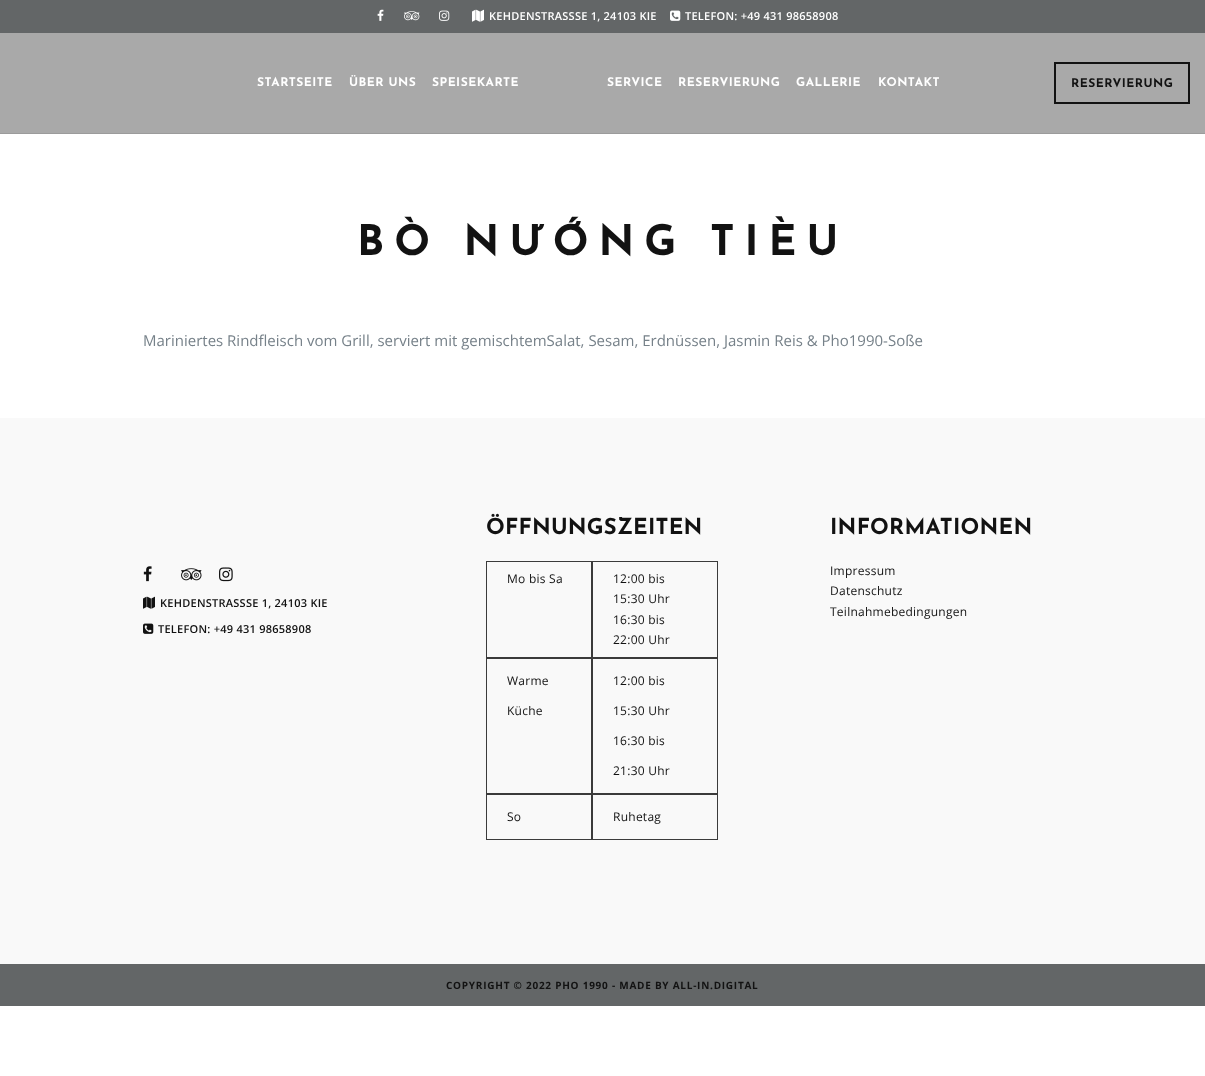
(async () => {
  const canvas = document.querySelector("canvas");
  canvas.width = 1205;
  canvas.height = 1076;
  const ctx = canvas.getContext("2d");
  ctx.miterLimit = 4;
  ctx.fontKerning = "normal";
  async function loadImage(src) {
    const img = new Image();
    img.src = src;
    await img.decode();
    return img;
  }

  ctx.fillStyle = "#ffffff";
  ctx.fillRect(0, 0, 1205, 1076);
  for (const [x, y, w, h, color] of [
    [0, 33, 1205, 100, "#a9a9a9"],
    [0, 133, 1205, 1, "#9b9b9b"],
    [0, 0, 1205, 33, "#636667"],
  ]) {
    ctx.fillStyle = color;
    ctx.fillRect(x, y, w, h);
  }
  ctx.drawImage(await loadImage("img/1.png"), 377, 9, 7, 12);
  ctx.drawImage(await loadImage("img/2.png"), 404, 11, 16, 10);
  ctx.drawImage(await loadImage("img/3.png"), 439, 10, 11, 11);
  ctx.drawImage(await loadImage("img/4.png"), 472, 9, 12, 13);
  ctx.drawImage(await loadImage("img/5.png"), 670, 10, 11, 11);
  ctx.strokeStyle = "#121212";
  ctx.lineWidth = 2;
  ctx.strokeRect(1055, 63, 134, 40);
  ctx.fillStyle = "#f9f9f9";
  ctx.fillRect(0, 418, 1205, 546);
  ctx.drawImage(await loadImage("img/6.png"), 143, 566, 9, 16);
  ctx.drawImage(await loadImage("img/7.png"), 181, 568, 21, 13);
  ctx.drawImage(await loadImage("img/8.png"), 219, 567, 14, 15);
  ctx.drawImage(await loadImage("img/9.png"), 143, 596, 12, 13);
  ctx.drawImage(await loadImage("img/10.png"), 143, 623, 11, 11);
  ctx.strokeStyle = "#3b3b3b";
  ctx.lineWidth = 1;
  ctx.strokeRect(486.5, 561.5, 105, 96);
  ctx.strokeRect(592.5, 561.5, 125, 96);
  ctx.strokeRect(486.5, 658.5, 105, 135);
  ctx.strokeRect(592.5, 658.5, 125, 135);
  ctx.strokeRect(486.5, 794.5, 105, 45);
  ctx.strokeRect(592.5, 794.5, 125, 45);
  ctx.fillStyle = "#636667";
  ctx.fillRect(0, 964, 1205, 42);
  ctx.letterSpacing = "0.25px";
  ctx.font = "600 11px Open Sans";
  ctx.fillStyle = "#ffffff";
  ctx.fillText("KEHDENSTRASSSE 1, 24103 KIE", 489, 20);
  ctx.fillText("TELEFON: +49 431 98658908", 685, 20);
  ctx.letterSpacing = "0.5px";
  ctx.font = "bold 12px Josefin Sans";
  for (const [text, x, y] of [
    ["STARTSEITE", 257, 86],
    ["ÜBER UNS", 349, 86],
    ["SPEISEKARTE", 432, 86],
    ["SERVICE", 607, 86],
    ["RESERVIERUNG", 678, 86],
    ["GALLERIE", 796, 86],
    ["KONTAKT", 878, 86],
  ]) {
    ctx.fillText(text, x, y);
  }
  ctx.fillStyle = "#121212";
  ctx.fillText("RESERVIERUNG", 1071, 87);
  ctx.letterSpacing = "10px";
  ctx.font = "bold 42px Josefin Sans";
  ctx.fillText("BÒ NƯỚNG TIÈU", 357, 255);
  ctx.letterSpacing = "0px";
  ctx.font = "15px Open Sans";
  ctx.fillStyle = "#768189";
  ctx.fillText("Mariniertes Rindfleisch vom Grill, serviert mit gemischtemSalat, Sesam, Erdnüssen, Jasmin Reis & Pho1990-Soße", 143, 346);
  ctx.letterSpacing = "0.25px";
  ctx.font = "600 11px Open Sans";
  ctx.fillStyle = "#121212";
  ctx.fillText("KEHDENSTRASSSE 1, 24103 KIE", 160, 607);
  ctx.fillText("TELEFON: +49 431 98658908", 158, 633);
  ctx.font = "bold 22px Josefin Sans";
  ctx.fillText("ÖFFNUNGSZEITEN", 486, 534);
  ctx.font = "12px Open Sans";
  for (const [text, x, y] of [
    ["Mo bis Sa", 507, 583],
    ["12:00 bis", 613, 583],
    ["15:30 Uhr", 613, 603],
    ["16:30 bis", 613, 624],
    ["22:00 Uhr", 613, 644],
    ["Warme", 507, 685],
    ["Küche", 507, 715],
    ["12:00 bis", 613, 685],
    ["15:30 Uhr", 613, 715],
    ["16:30 bis", 613, 745],
    ["21:30 Uhr", 613, 775],
    ["So", 507, 821],
    ["Ruhetag", 613, 821],
  ]) {
    ctx.fillText(text, x, y);
  }
  ctx.font = "bold 22px Josefin Sans";
  ctx.fillText("INFORMATIONEN", 830, 534);
  ctx.font = "12px Open Sans";
  for (const [text, x, y] of [
    ["Impressum", 830, 575],
    ["Datenschutz", 830, 595],
    ["Teilnahmebedingungen", 830, 616],
  ]) {
    ctx.fillText(text, x, y);
  }
  ctx.letterSpacing = "0.75px";
  ctx.font = "bold 10px Open Sans";
  ctx.fillText("COPYRIGHT © 2022 PHO 1990 - MADE BY ALL-IN.DIGITAL", 446, 989);
})();
